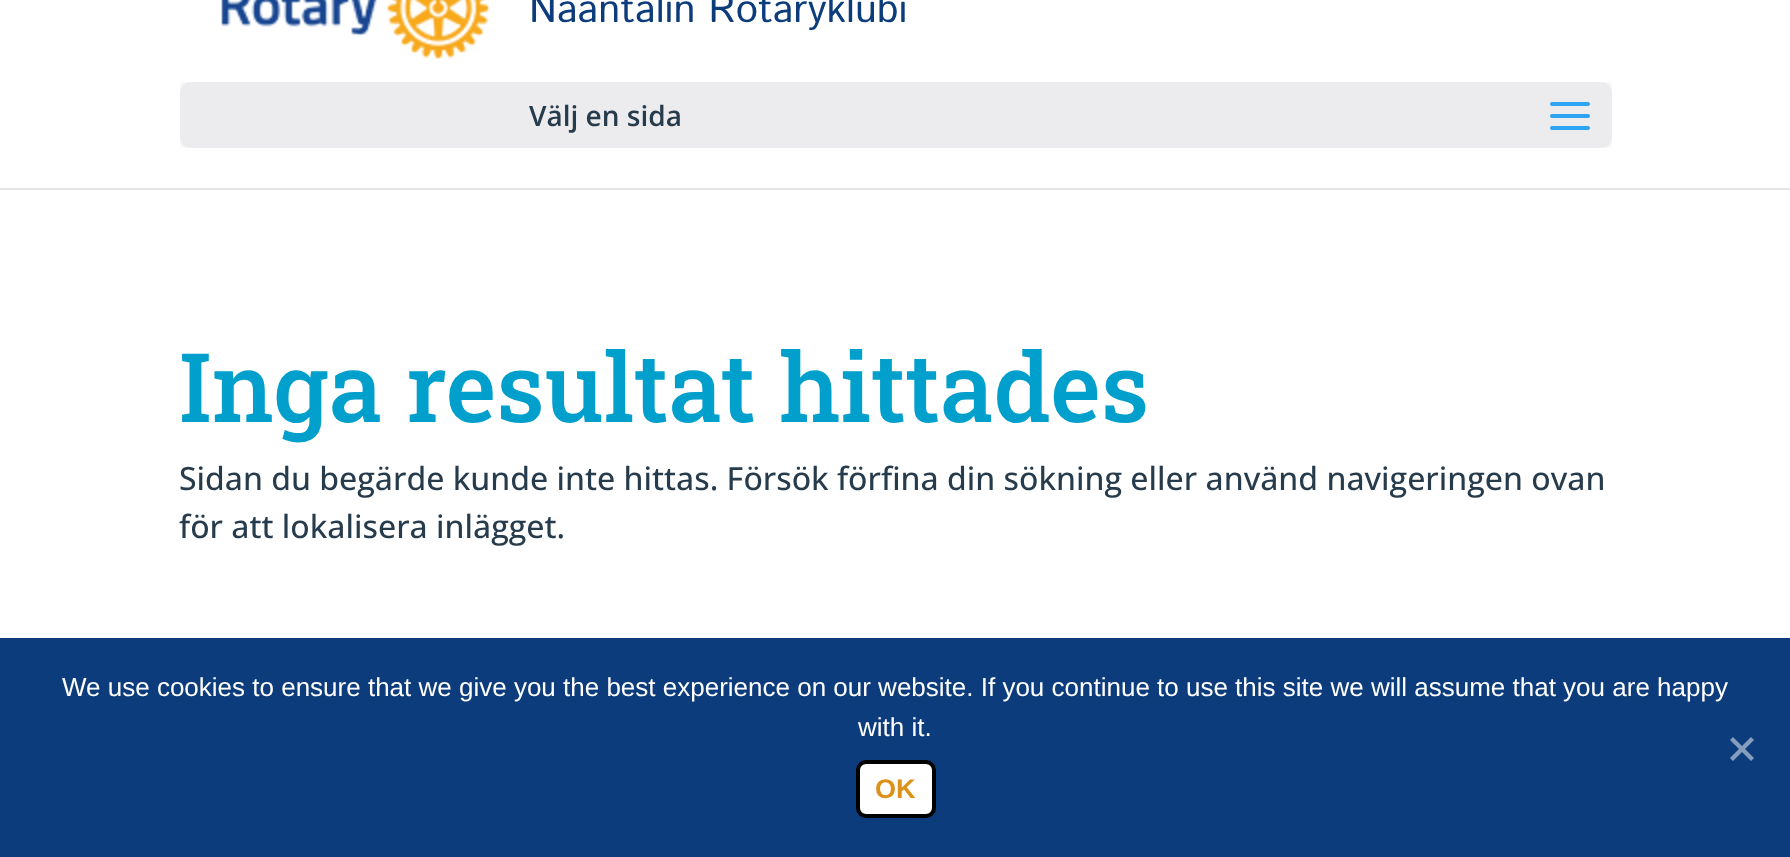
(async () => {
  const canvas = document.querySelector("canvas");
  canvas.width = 1790;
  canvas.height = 857;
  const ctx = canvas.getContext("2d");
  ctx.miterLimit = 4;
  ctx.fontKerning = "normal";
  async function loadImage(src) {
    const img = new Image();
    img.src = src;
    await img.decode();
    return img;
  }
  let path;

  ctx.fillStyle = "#ffffff";
  ctx.fillRect(0, 0, 1790, 857);
  ctx.fillStyle = "#e6e6e6";
  ctx.fillRect(0, 188, 1790, 2);
  ctx.drawImage(await loadImage("img/1.png"), 221, 0, 268, 59);
  ctx.fillStyle = "#f8f9fa";
  ctx.fillRect(180, 82, 1432, 66);
  ctx.fillStyle = "#ececee";
  ctx.beginPath();
  ctx.roundRect(180, 82, 1432, 66, 10);
  ctx.fill();
  ctx.drawImage(await loadImage("img/2.png"), 1550, 102, 40, 28);
  ctx.fillStyle = "#0c3c7c";
  ctx.fillRect(0, 638, 1790, 219);
  ctx.fillStyle = "#869ebe";
  path = new Path2D("M1751 737L1754 740L1733 761L1730 758Z");
  ctx.fill(path);
  path = new Path2D("M1730 740L1733 737L1754 758L1751 761Z");
  ctx.fill(path);
  ctx.fillStyle = "#ffffff";
  ctx.beginPath();
  ctx.roundRect(858, 762, 76, 54, 8);
  ctx.fill();
  ctx.strokeStyle = "#000000";
  ctx.lineWidth = 4;
  ctx.stroke();
  ctx.font = "39.75px Istok Web";
  ctx.fillStyle = "#0c3c7c";
  ctx.fillText("Naantalin Rotaryklubi", 529, 22);
  ctx.font = "600 28px Open Sans";
  ctx.fillStyle = "#263b4c";
  ctx.fillText("Välj en sida", 529, 126);
  ctx.font = "500 96px Roboto Slab";
  ctx.fillStyle = "#019fcb";
  ctx.fillText("Inga resultat hittades", 179, 422);
  ctx.font = "500 32px Open Sans";
  ctx.fillStyle = "#263b4c";
  ctx.fillText("Sidan du begärde kunde inte hittas. Försök förfina din sökning eller använd navigeringen ovan", 179, 490);
  ctx.fillText("för att lokalisera inlägget.", 179, 538);
  ctx.font = "26px Liberation Sans";
  ctx.fillStyle = "#ffffff";
  ctx.fillText("We use cookies to ensure that we give you the best experience on our website. If you continue to use this site we will assume that you are happy", 62, 696);
  ctx.fillText("with it.", 858, 736);
  ctx.font = "bold 27px Liberation Sans";
  ctx.fillStyle = "#dc911b";
  ctx.fillText("OK", 875, 798);
})();
